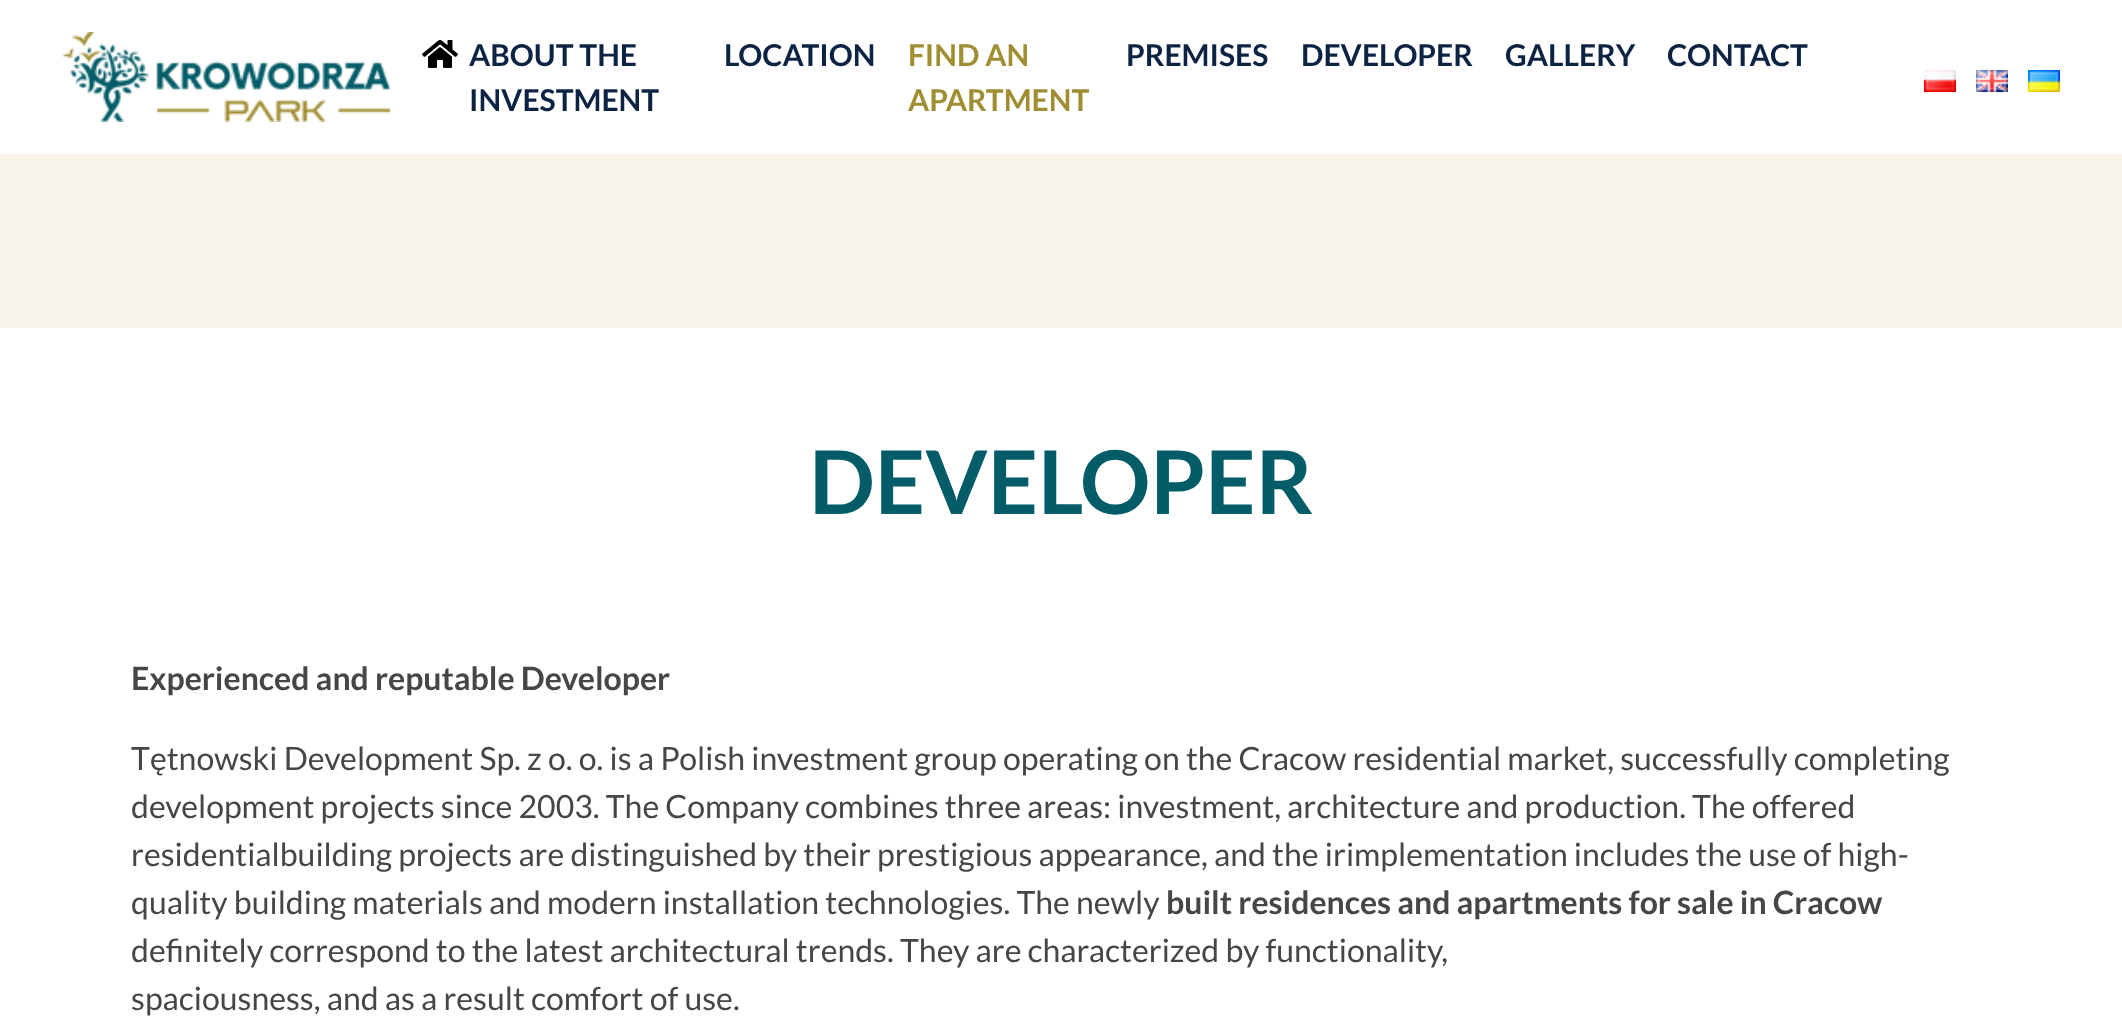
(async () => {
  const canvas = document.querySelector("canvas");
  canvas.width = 2122;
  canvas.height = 1016;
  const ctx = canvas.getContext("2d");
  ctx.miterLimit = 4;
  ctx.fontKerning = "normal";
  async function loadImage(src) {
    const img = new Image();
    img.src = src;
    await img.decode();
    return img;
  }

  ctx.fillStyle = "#ffffff";
  ctx.fillRect(0, 0, 2122, 1016);
  ctx.drawImage(await loadImage("img/1.png"), 62, 32, 328, 90);
  ctx.drawImage(await loadImage("img/2.png"), 422, 40, 36, 28);
  ctx.drawImage(await loadImage("img/3.png"), 1924, 70, 32, 22);
  ctx.drawImage(await loadImage("img/4.png"), 1976, 70, 32, 22);
  ctx.drawImage(await loadImage("img/5.png"), 2028, 70, 32, 22);
  ctx.fillStyle = "#f5f3ea";
  ctx.fillRect(0, 154, 2122, 174);
  ctx.font = "bold 30px Lato";
  ctx.fillStyle = "#0d2344";
  for (const [text, x, y] of [
    ["ABOUT THE", 469, 66],
    ["INVESTMENT", 469, 111],
    ["LOCATION", 724, 66],
  ]) {
    ctx.fillText(text, x, y);
  }
  ctx.fillStyle = "#a08e33";
  ctx.fillText("FIND AN", 908, 66);
  ctx.fillText("APARTMENT", 908, 111);
  ctx.fillStyle = "#0d2344";
  for (const [text, x, y] of [
    ["PREMISES", 1126, 66],
    ["DEVELOPER", 1301, 66],
    ["GALLERY", 1505, 66],
    ["CONTACT", 1667, 66],
  ]) {
    ctx.fillText(text, x, y);
  }
  ctx.font = "bold 88px Lato";
  ctx.fillStyle = "#035c67";
  ctx.fillText("DEVELOPER", 809, 514);
  ctx.font = "bold 32px Lato";
  ctx.fillStyle = "#464646";
  ctx.fillText("Experienced and reputable Developer", 131, 690);
  ctx.font = "32px Lato";
  for (const [text, x, y] of [
    ["Tętnowski Development Sp. z o. o. is a Polish investment group operating on the Cracow residential market, successfully completing", 131, 770],
    ["development projects since 2003. The Company combines three areas: investment, architecture and production. The offered", 131, 818],
    ["residentialbuilding projects are distinguished by their prestigious appearance, and the irimplementation includes the use of high-", 131, 866],
    ["quality building materials and modern installation technologies. The newly", 131, 914],
  ]) {
    ctx.fillText(text, x, y);
  }
  ctx.font = "bold 32px Lato";
  ctx.fillText("built residences and apartments for sale in Cracow", 1166, 914);
  ctx.font = "32px Lato";
  ctx.fillText("definitely correspond to the latest architectural trends. They are characterized by functionality,", 131, 962);
  ctx.fillText("spaciousness, and as a result comfort of use.", 131, 1010);
})();
